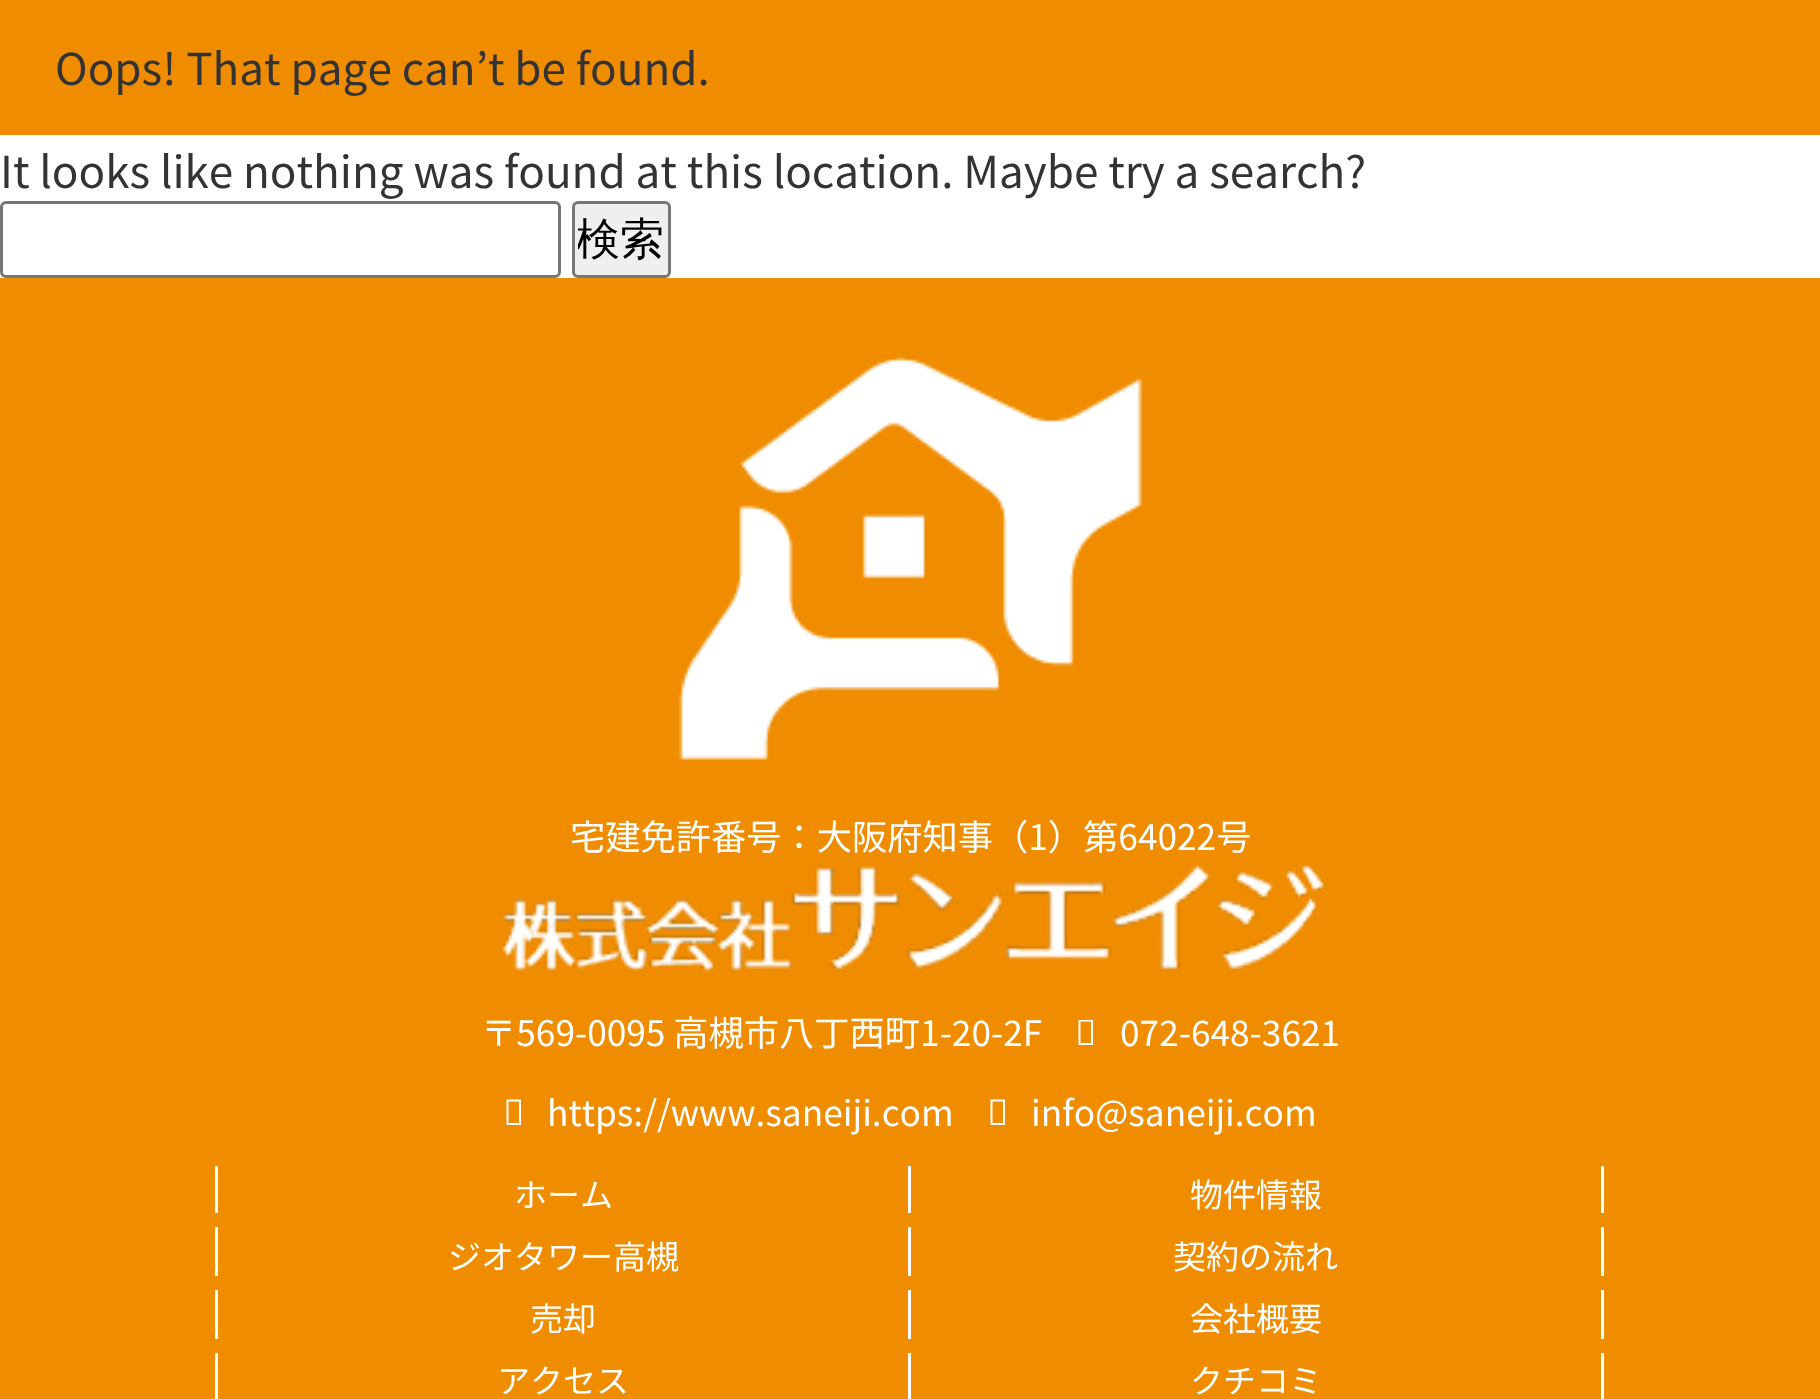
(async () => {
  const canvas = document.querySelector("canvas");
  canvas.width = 1820;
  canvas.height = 1399;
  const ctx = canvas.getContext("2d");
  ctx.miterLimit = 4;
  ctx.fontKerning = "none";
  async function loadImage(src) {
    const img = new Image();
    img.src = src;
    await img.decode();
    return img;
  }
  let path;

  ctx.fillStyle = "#ffffff";
  ctx.fillRect(0, 0, 1820, 1399);
  ctx.fillStyle = "#f08c00";
  ctx.fillRect(0, 0, 1820, 135);
  ctx.beginPath();
  ctx.roundRect(1.5, 202.5, 558, 74, 4.5);
  ctx.strokeStyle = "#767676";
  ctx.lineWidth = 3;
  ctx.stroke();
  ctx.fillStyle = "#efefef";
  ctx.beginPath();
  ctx.roundRect(573.5, 202.5, 96, 74, 4.5);
  ctx.fill();
  ctx.stroke();
  ctx.fillStyle = "#f08c00";
  ctx.fillRect(0, 278, 1820, 1121);
  ctx.drawImage(await loadImage("img/1.png"), 678, 356, 465, 404);
  ctx.drawImage(await loadImage("img/2.png"), 502, 865, 821, 107);
  ctx.fillStyle = "#ffffff";
  path = new Path2D("M1078.5 1045V1020H1093V1045ZM1080.5 1043H1091V1021.5H1080.5Z");
  ctx.fill(path);
  path = new Path2D("M506.5 1125V1099.5H521V1125ZM508.5 1123H519V1101.5H508.5Z");
  ctx.fill(path);
  path = new Path2D("M990.5 1125V1099.5H1005V1125ZM992.5 1123H1003V1101.5H992.5Z");
  ctx.fill(path);
  for (const [x, y, w, h, color] of [
    [215, 1166, 3, 47, "#ffffff"],
    [1601, 1166, 3, 47, "#ffffff"],
    [908, 1166, 3, 47, "#ffffff"],
    [215, 1227, 3, 49, "#ffffff"],
    [1601, 1227, 3, 49, "#ffffff"],
    [908, 1227, 3, 49, "#ffffff"],
    [215, 1290, 3, 49, "#ffffff"],
    [1601, 1290, 3, 49, "#ffffff"],
    [908, 1290, 3, 49, "#ffffff"],
    [215, 1353, 3, 46, "#ffffff"],
    [1601, 1353, 3, 46, "#ffffff"],
    [908, 1353, 3, 46, "#ffffff"],
  ]) {
    ctx.fillStyle = color;
    ctx.fillRect(x, y, w, h);
  }
  ctx.font = "44px Noto Sans JP";
  ctx.fillStyle = "#333333";
  ctx.fillText("Oops! That page can’t be found.", 55, 85);
  ctx.fillText("It looks like nothing was found at this location. Maybe try a search?", 0, 188);
  ctx.save();
  ctx.beginPath();
  ctx.rect(578, 206, 88, 66);
  ctx.clip();
  ctx.font = "500 44px WenQuanYi Zen Hei";
  ctx.fillStyle = "#000000";
  ctx.fillText("検索", 576, 254);
  ctx.restore();
  ctx.font = "35.25px Noto Sans JP";
  ctx.fillStyle = "#ffffff";
  for (const [text, x, y] of [
    ["宅建免許番号：大阪府知事（1）第64022号", 570, 850],
    ["〒569-0095 高槻市八丁西町1-20-2F", 481, 1046],
    ["072-648-3621", 1120, 1046],
    ["https://www.saneiji.com", 547, 1126],
    ["info@saneiji.com", 1031, 1126],
  ]) {
    ctx.fillText(text, x, y);
  }
  ctx.font = "33px Noto Sans JP";
  for (const [text, x, y] of [
    ["ホーム", 514, 1207],
    ["物件情報", 1190, 1207],
    ["ジオタワー高槻", 448, 1269],
    ["契約の流れ", 1173, 1269],
    ["売却", 530, 1331],
    ["会社概要", 1190, 1331],
    ["アクセス", 497, 1393],
    ["クチコミ", 1190, 1393],
  ]) {
    ctx.fillText(text, x, y);
  }
})();
